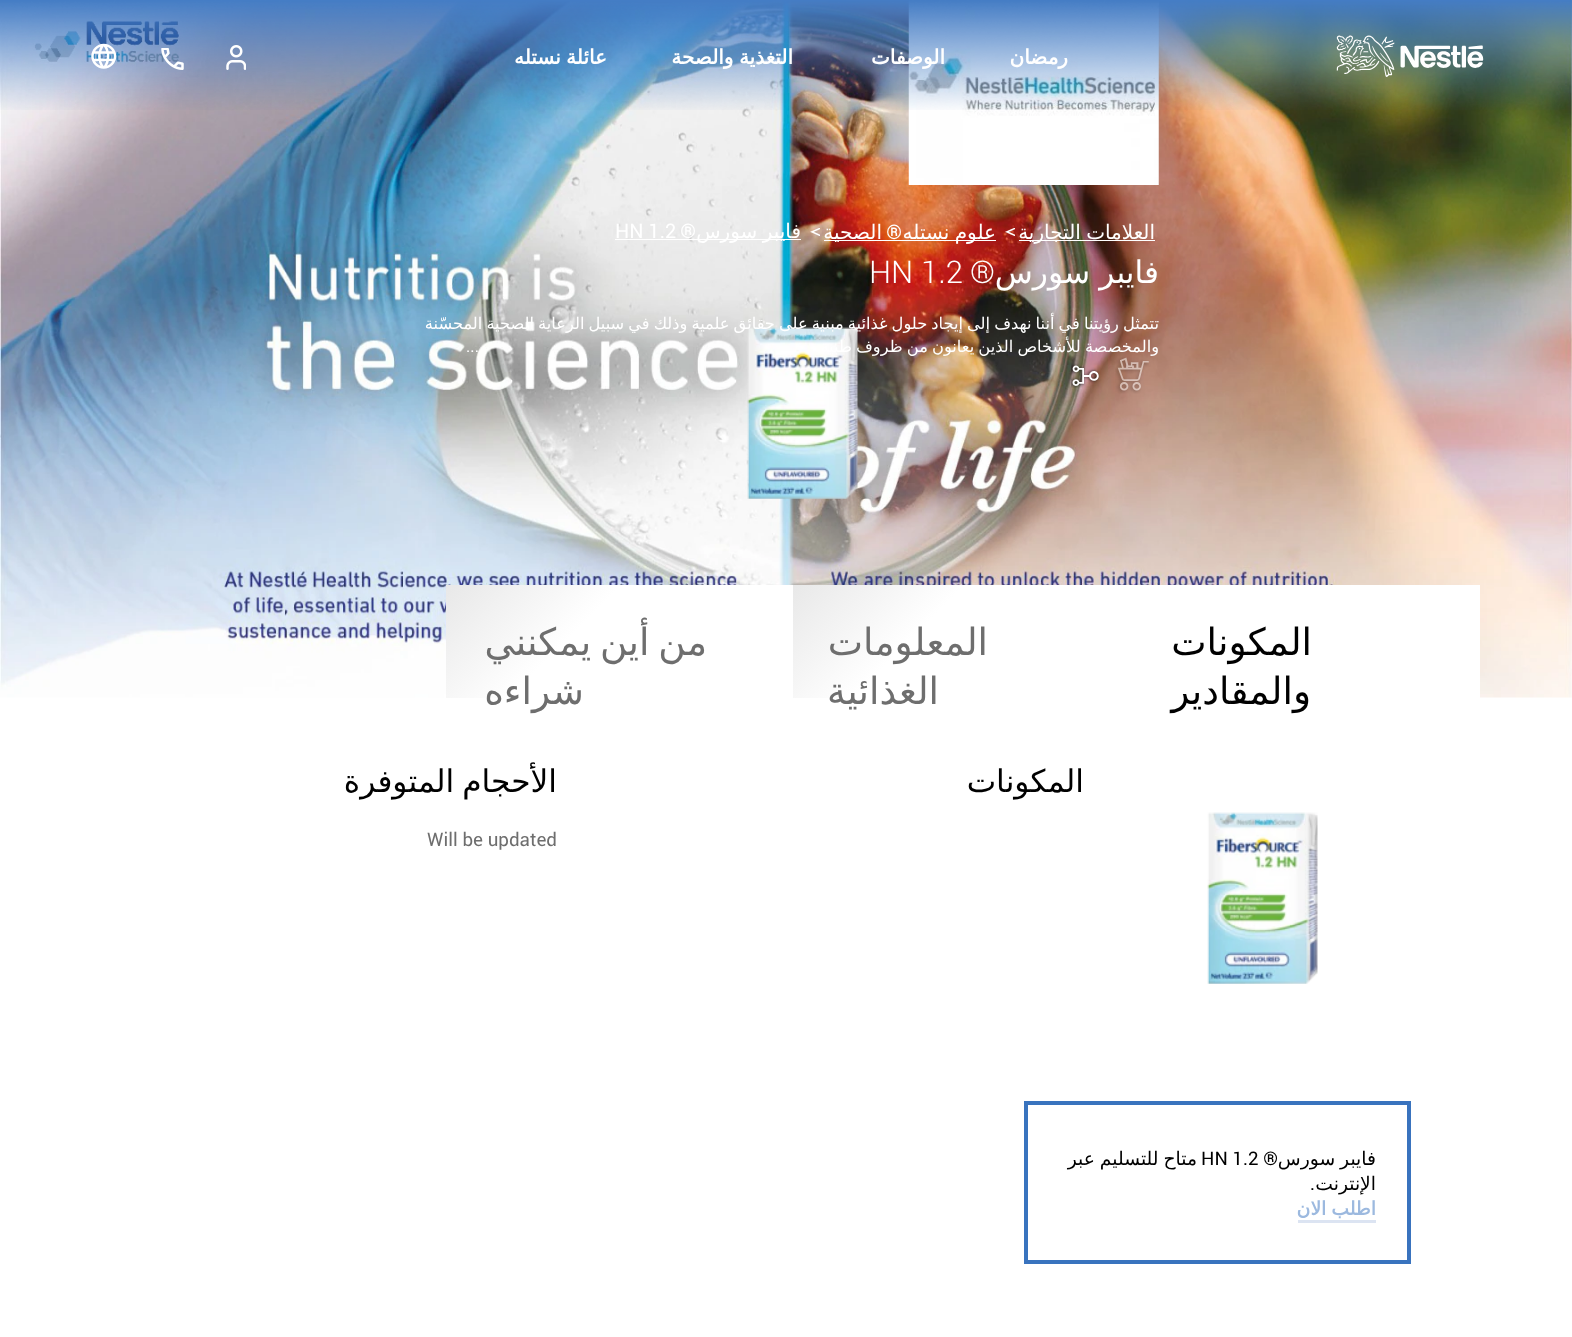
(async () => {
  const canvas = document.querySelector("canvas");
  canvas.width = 1572;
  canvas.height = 1337;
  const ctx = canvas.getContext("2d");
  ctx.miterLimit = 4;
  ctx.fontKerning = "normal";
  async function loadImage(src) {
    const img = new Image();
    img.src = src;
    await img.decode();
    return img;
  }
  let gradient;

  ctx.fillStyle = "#ffffff";
  ctx.fillRect(0, 0, 1572, 1337);
  ctx.drawImage(await loadImage("img/6.png"), 0, 0, 1572, 698);
  ctx.drawImage(await loadImage("img/7.png"), 908, 0, 251, 185);
  ctx.drawImage(await loadImage("img/1.png"), 0, 0, 1572, 110);
  ctx.drawImage(await loadImage("img/2.png"), 1336, 35, 148, 42);
  ctx.drawImage(await loadImage("img/3.png"), 226, 45, 20, 25);
  ctx.drawImage(await loadImage("img/4.png"), 161, 48, 23, 22);
  ctx.drawImage(await loadImage("img/5.png"), 91, 43, 26, 26);
  ctx.drawImage(await loadImage("img/8.png"), 1005, 228, 10, 8);
  ctx.fillRect(1019, 240, 136, 1);
  ctx.drawImage(await loadImage("img/9.png"), 810, 228, 10, 8);
  ctx.fillRect(824, 240, 172, 1);
  ctx.fillRect(615, 239, 186, 1);
  ctx.drawImage(await loadImage("img/10.png"), 1115, 357, 34, 37);
  ctx.drawImage(await loadImage("img/11.png"), 1071, 363, 29, 25);
  ctx.drawImage(await loadImage("img/12.png"), 747, 327, 111, 172);
  ctx.fillRect(1136, 585, 344, 113);
  gradient = ctx.createLinearGradient(848, 527, 1078, 756);
  gradient.addColorStop(0, "#e8e8e8");
  gradient.addColorStop(0.38, "#ffffff");
  gradient.addColorStop(1, "#ffffff");
  ctx.fillStyle = gradient;
  ctx.fillRect(793, 585, 343, 113);
  gradient = ctx.createLinearGradient(505, 527, 734, 756);
  gradient.addColorStop(0, "#e8e8e8");
  gradient.addColorStop(0.38, "#ffffff");
  gradient.addColorStop(1, "#ffffff");
  ctx.fillStyle = gradient;
  ctx.fillRect(446, 585, 347, 113);
  ctx.drawImage(await loadImage("img/13.png"), 1207, 812, 111, 172);
  ctx.strokeStyle = "#3973be";
  ctx.lineWidth = 4;
  ctx.strokeRect(1026, 1103, 383, 159);
  ctx.fillStyle = "#dce4f2";
  ctx.fillRect(1298, 1220, 78, 3);
  ctx.direction = "rtl";
  ctx.font = "bold 20px DejaVu Sans";
  ctx.fillStyle = "#ffffff";
  ctx.fillText("رمضان", 1068, 64);
  ctx.fillText("الوصفات", 945, 64);
  ctx.wordSpacing = "-1px";
  ctx.fillText("التغذية والصحة", 793, 64);
  ctx.fillText("عائلة نستله", 607, 64);
  ctx.font = "20px DejaVu Sans";
  ctx.fillText("العلامات التجارية", 1155, 239);
  ctx.fillText("علوم نستله", 996, 239);
  ctx.wordSpacing = "0px";
  ctx.font = "20px Roboto";
  ctx.fillText("®", 902, 239);
  ctx.font = "20px DejaVu Sans";
  ctx.fillText("الصحية", 882, 239);
  ctx.wordSpacing = "-1px";
  ctx.fillText("فايبر سورس", 801, 238);
  ctx.wordSpacing = "0px";
  ctx.font = "20px Roboto";
  ctx.fillText("®", 696, 238);
  ctx.direction = "ltr";
  ctx.fillText("HN 1.2", 615, 238);
  ctx.wordSpacing = "-1px";
  ctx.direction = "rtl";
  ctx.font = "31.25px DejaVu Sans";
  ctx.fillText("فايبر سورس", 1159, 283);
  ctx.wordSpacing = "0px";
  ctx.font = "300 31.25px Roboto";
  ctx.fillText("®", 995, 283);
  ctx.direction = "ltr";
  ctx.fillText("HN 1.2", 869, 283);
  ctx.wordSpacing = "-1.1px";
  ctx.direction = "rtl";
  ctx.font = "16.25px DejaVu Sans";
  ctx.fillText("تتمثل رؤيتنا في أننا نهدف إلى إيجاد حلول غذائية مبنية على حقائق علمية وذلك في سبيل الرعاية الصحية المحسّنة", 1159, 329);
  ctx.wordSpacing = "-1px";
  ctx.fillText("والمخصصة للأشخاص الذين يعانون من ظروف طبية", 1159, 352);
  ctx.wordSpacing = "0px";
  ctx.font = "16.25px Roboto";
  ctx.fillText("...", 479, 352);
  ctx.font = "37.5px DejaVu Sans";
  ctx.fillStyle = "#000000";
  ctx.fillText("المكونات", 1312, 655);
  ctx.fillText("والمقادير", 1311, 704);
  ctx.fillStyle = "#6e6e6e";
  ctx.fillText("المعلومات", 988, 655);
  ctx.fillText("الغذائية", 939, 704);
  ctx.wordSpacing = "-3px";
  ctx.fillText("من أين يمكنني", 707, 655);
  ctx.wordSpacing = "0px";
  ctx.fillText("شراءه", 584, 704);
  ctx.font = "31.25px DejaVu Sans";
  ctx.fillStyle = "#000000";
  ctx.fillText("المكونات", 1084, 792);
  ctx.wordSpacing = "-2px";
  ctx.fillText("الأحجام المتوفرة", 557, 792);
  ctx.wordSpacing = "0px";
  ctx.direction = "ltr";
  ctx.font = "18.75px Roboto";
  ctx.fillStyle = "#6e6e6e";
  ctx.fillText("Will be updated", 427, 846);
  ctx.wordSpacing = "-1px";
  ctx.direction = "rtl";
  ctx.font = "18.75px DejaVu Sans";
  ctx.fillStyle = "#000000";
  ctx.fillText("فايبر سورس", 1376, 1165);
  ctx.wordSpacing = "0px";
  ctx.font = "18.75px Roboto";
  ctx.fillText("®", 1278, 1165);
  ctx.direction = "ltr";
  ctx.fillText("HN 1.2", 1201, 1165);
  ctx.wordSpacing = "-1px";
  ctx.direction = "rtl";
  ctx.font = "18.75px DejaVu Sans";
  ctx.fillText("متاح للتسليم عبر", 1197, 1165);
  ctx.wordSpacing = "0px";
  ctx.fillText("الإنترنت", 1376, 1190);
  ctx.font = "18.75px Roboto";
  ctx.fillText(".", 1315, 1190);
  ctx.wordSpacing = "-1px";
  ctx.font = "bold 18.75px DejaVu Sans";
  ctx.fillStyle = "#9cb9df";
  ctx.fillText("اطلب الان", 1376, 1215);
})();
